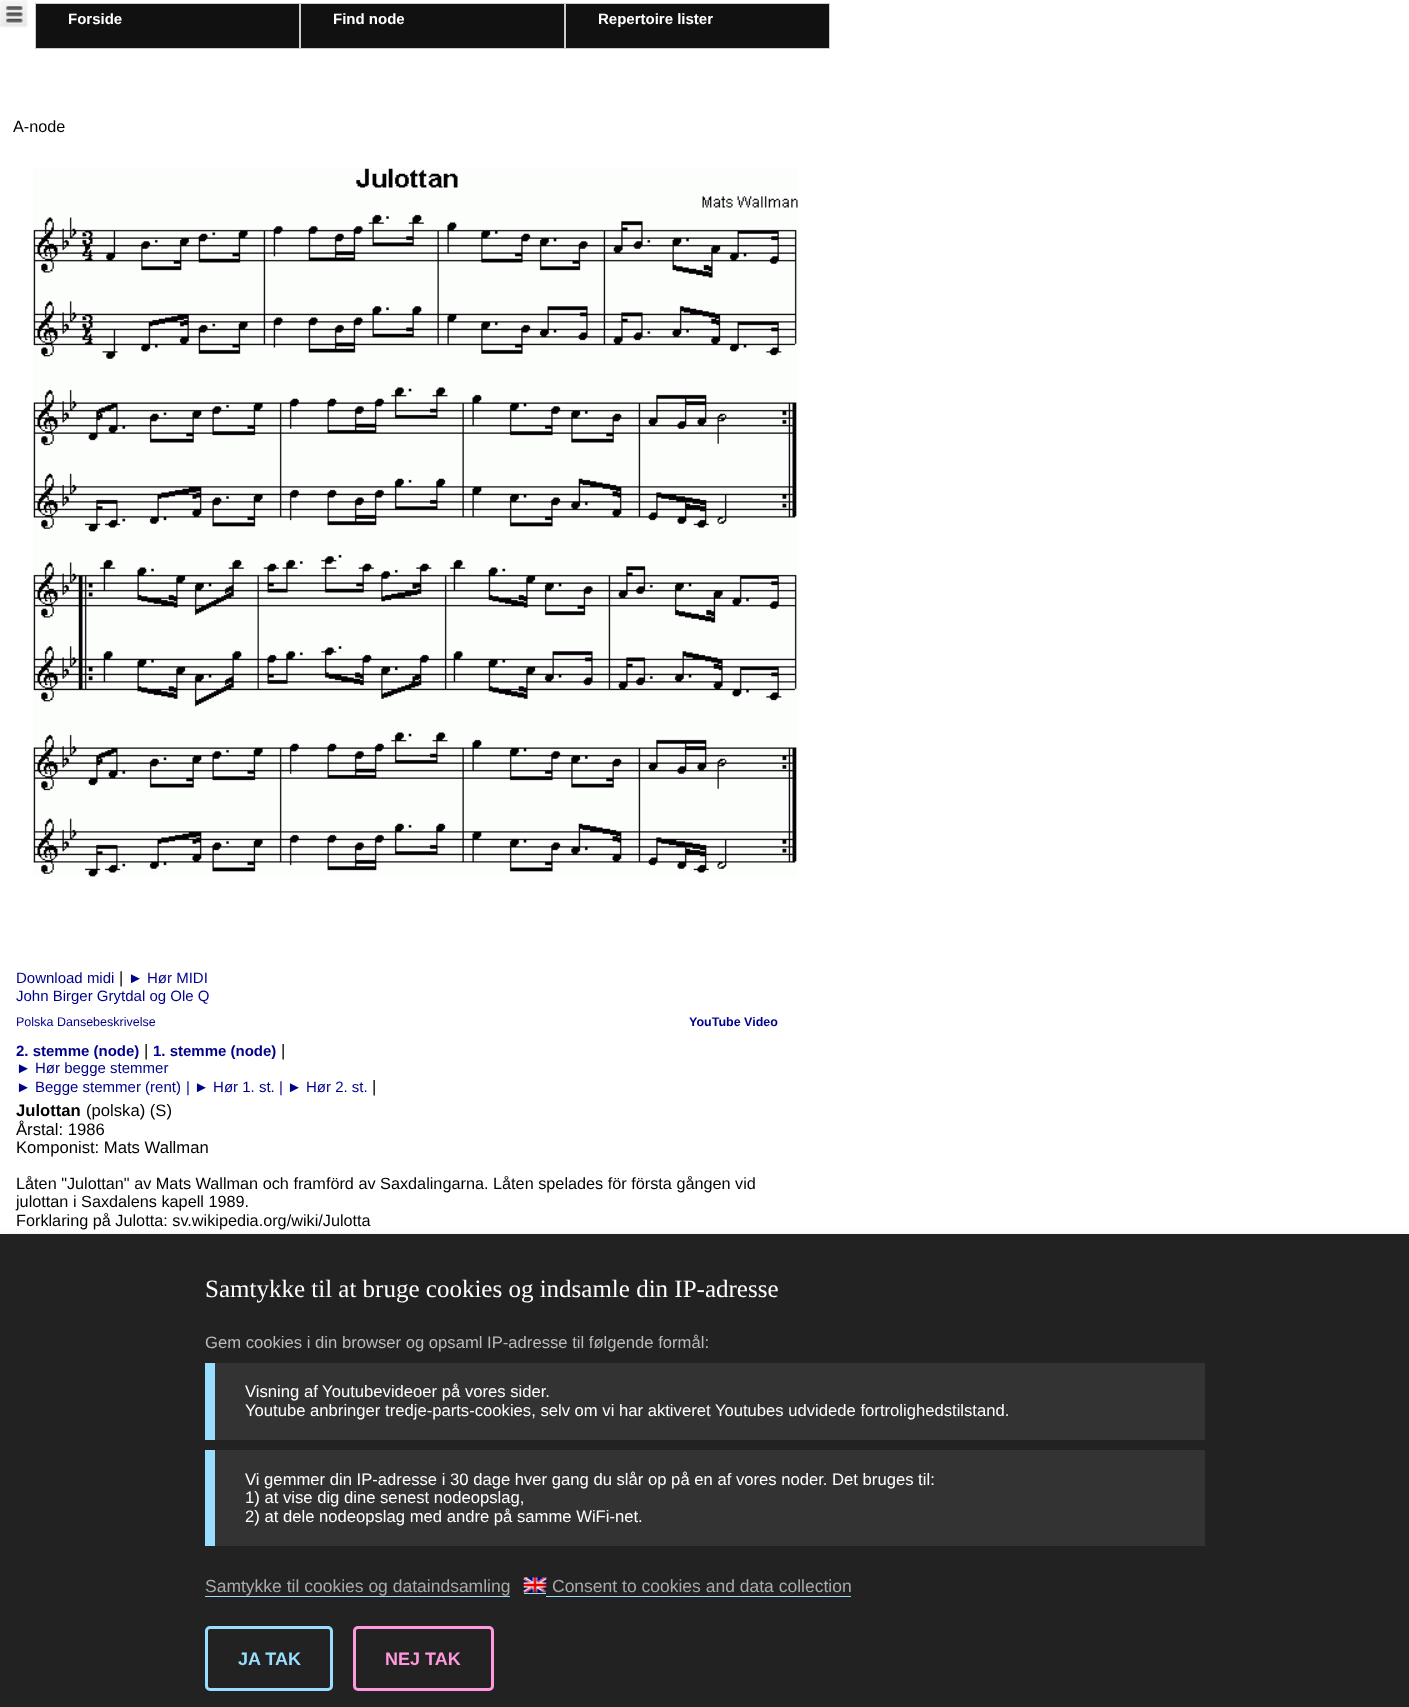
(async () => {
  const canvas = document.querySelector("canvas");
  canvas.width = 1409;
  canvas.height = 1707;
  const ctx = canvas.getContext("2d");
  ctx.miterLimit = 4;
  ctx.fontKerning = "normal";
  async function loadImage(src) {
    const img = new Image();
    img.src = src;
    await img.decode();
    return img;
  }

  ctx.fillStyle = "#ffffff";
  ctx.fillRect(0, 0, 1409, 1707);
  ctx.drawImage(await loadImage("img/1.png"), 0, 0, 28, 28);
  ctx.fillStyle = "#111111";
  ctx.beginPath();
  ctx.rect(35.5, 3.5, 264, 45);
  ctx.fill();
  ctx.strokeStyle = "#cccccc";
  ctx.stroke();
  ctx.beginPath();
  ctx.rect(300.5, 3.5, 264, 45);
  ctx.fill();
  ctx.stroke();
  ctx.beginPath();
  ctx.rect(565.5, 3.5, 264, 45);
  ctx.fill();
  ctx.stroke();
  ctx.drawImage(await loadImage("img/2.png"), 33, 168, 765, 709);
  ctx.fillStyle = "rgba(128, 128, 128, 0.5)";
  ctx.filter = "blur(5px)";
  ctx.beginPath();
  ctx.rect(0, 1239, 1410, 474);
  ctx.fill();
  ctx.filter = "none";
  for (const [x, y, w, h, color] of [
    [0, 1234, 1409, 473, "#222222"],
    [215, 1363, 990, 77, "#333333"],
    [205, 1363, 10, 77, "#99ddff"],
    [215, 1450, 990, 96, "#333333"],
    [205, 1450, 10, 96, "#99ddff"],
    [205, 1596, 305, 1, "#99ddff"],
  ]) {
    ctx.fillStyle = color;
    ctx.fillRect(x, y, w, h);
  }
  ctx.drawImage(await loadImage("img/3.png"), 523, 1577, 24, 16);
  ctx.fillRect(524, 1593, 22, 1);
  ctx.fillRect(546, 1596, 305, 1);
  ctx.beginPath();
  ctx.roundRect(206.5, 1627.5, 125, 62, 3.5);
  ctx.strokeStyle = "#99ddff";
  ctx.lineWidth = 3;
  ctx.stroke();
  ctx.beginPath();
  ctx.roundRect(354.5, 1627.5, 138, 62, 3.5);
  ctx.strokeStyle = "#ff99dd";
  ctx.stroke();
  ctx.font = "bold 15px Liberation Sans";
  ctx.fillStyle = "#ffffff";
  for (const [text, x, y] of [
    ["Forside", 68, 24],
    ["Find node", 333, 24],
    ["Repertoire lister", 598, 24],
  ]) {
    ctx.fillText(text, x, y);
  }
  ctx.font = "16.25px Liberation Sans";
  ctx.fillStyle = "#000000";
  ctx.fillText("A-node", 13, 132);
  ctx.font = "15px Liberation Sans";
  ctx.fillStyle = "#00008b";
  ctx.fillText("Download midi", 16, 983);
  ctx.font = "16.25px Liberation Sans";
  ctx.fillStyle = "#000000";
  ctx.fillText("|", 119, 983);
  ctx.font = "15px Liberation Sans";
  ctx.fillStyle = "#00008b";
  ctx.fillText("► Hør MIDI", 128, 983);
  ctx.fillText("John Birger Grytdal og Ole Q", 16, 1001);
  ctx.font = "12.5px Liberation Sans";
  ctx.fillText("Polska Dansebeskrivelse", 16, 1026);
  ctx.font = "bold 12.5px Liberation Sans";
  ctx.fillText("YouTube Video", 689, 1026);
  ctx.font = "bold 15px Liberation Sans";
  ctx.fillText("2. stemme (node)", 16, 1056);
  ctx.font = "16.65px Liberation Sans";
  ctx.fillStyle = "#000000";
  ctx.fillText("|", 144, 1056);
  ctx.font = "bold 15px Liberation Sans";
  ctx.fillStyle = "#00008b";
  ctx.fillText("1. stemme (node)", 153, 1056);
  ctx.font = "16.65px Liberation Sans";
  ctx.fillStyle = "#000000";
  ctx.fillText("|", 281, 1056);
  ctx.font = "15px Liberation Sans";
  ctx.fillStyle = "#00008b";
  for (const [text, x, y] of [
    ["► Hør begge stemmer", 16, 1073],
    ["► Begge stemmer (rent)", 16, 1092],
    ["| ► Hør 1. st. | ► Hør 2. st.", 186, 1092],
  ]) {
    ctx.fillText(text, x, y);
  }
  ctx.font = "16.65px Liberation Sans";
  ctx.fillStyle = "#000000";
  ctx.fillText("|", 372, 1092);
  ctx.font = "bold 16.65px Liberation Sans";
  ctx.fillText("Julottan", 16, 1116);
  ctx.font = "16.65px Liberation Sans";
  for (const [text, x, y] of [
    ["(polska) (S)", 86, 1116],
    ["Årstal: 1986", 16, 1135],
    ["Komponist: Mats Wallman", 16, 1153],
  ]) {
    ctx.fillText(text, x, y);
  }
  ctx.font = "16.25px Liberation Sans";
  for (const [text, x, y] of [
    ["Låten \"Julottan\" av Mats Wallman och framförd av Saxdalingarna. Låten spelades för första gången vid", 16, 1189],
    ["julottan i Saxdalens kapell 1989.", 16, 1207],
    ["Forklaring på Julotta: sv.wikipedia.org/wiki/Julotta", 16, 1226],
  ]) {
    ctx.fillText(text, x, y);
  }
  ctx.font = "25px Liberation Serif";
  ctx.fillStyle = "#ffffff";
  ctx.fillText("Samtykke til at bruge cookies og indsamle din IP-adresse", 205, 1297);
  ctx.font = "16.65px Liberation Sans";
  ctx.fillStyle = "#bbbbbb";
  ctx.fillText("Gem cookies i din browser og opsaml IP-adresse til følgende formål:", 205, 1348);
  ctx.fillStyle = "#ffffff";
  for (const [text, x, y] of [
    ["Visning af Youtubevideoer på vores sider.", 245, 1397],
    ["Youtube anbringer tredje-parts-cookies, selv om vi har aktiveret Youtubes udvidede fortrolighedstilstand.", 245, 1416],
    ["Vi gemmer din IP-adresse i 30 dage hver gang du slår op på en af vores noder. Det bruges til:", 245, 1485],
    ["1) at vise dig dine senest nodeopslag,", 245, 1503],
    ["2) at dele nodeopslag med andre på samme WiFi-net.", 245, 1522],
  ]) {
    ctx.fillText(text, x, y);
  }
  ctx.font = "17.5px Liberation Sans";
  ctx.fillStyle = "#aaaaaa";
  ctx.fillText("Samtykke til cookies og dataindsamling", 205, 1592);
  ctx.fillText("Consent to cookies and data collection", 552, 1592);
  ctx.font = "bold 18px Liberation Sans";
  ctx.fillStyle = "#99ddff";
  ctx.fillText("JA TAK", 238, 1665);
  ctx.fillStyle = "#ff99dd";
  ctx.fillText("NEJ TAK", 385, 1665);
})();
